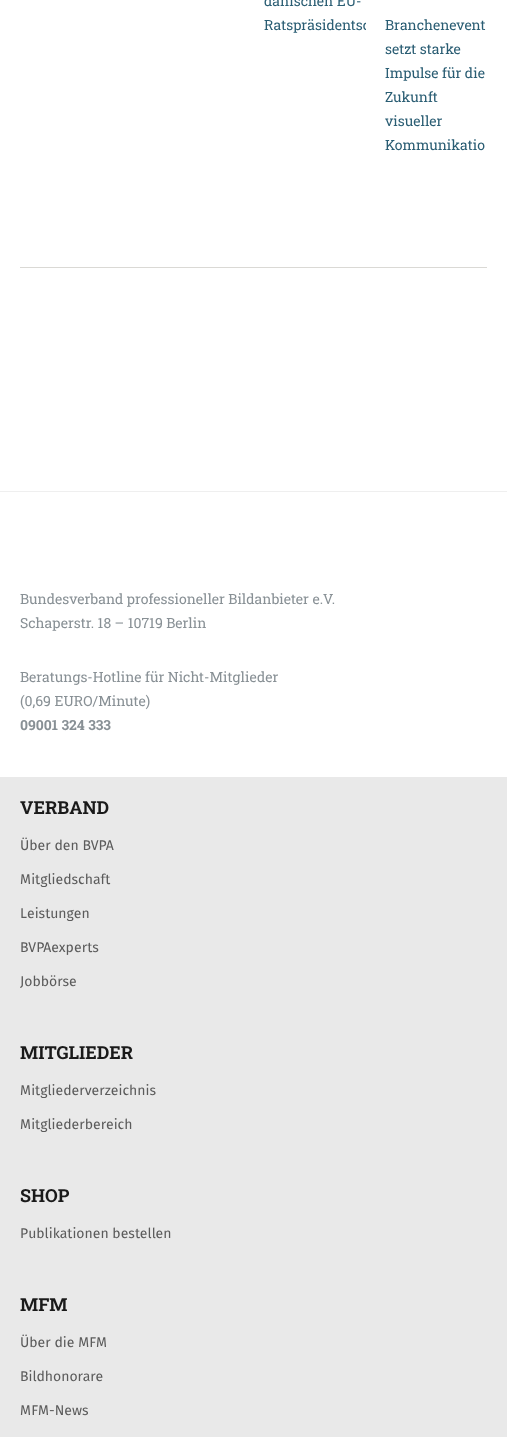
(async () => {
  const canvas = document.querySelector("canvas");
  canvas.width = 507;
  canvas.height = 1437;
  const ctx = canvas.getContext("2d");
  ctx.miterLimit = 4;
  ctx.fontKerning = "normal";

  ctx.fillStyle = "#ffffff";
  ctx.fillRect(0, 0, 507, 1437);
  for (const [x, y, w, h, color] of [
    [20, 267, 467, 1, "#dad9d5"],
    [0, 777, 507, 660, "#e9e9e9"],
    [0, 491, 507, 1, "#efefef"],
  ]) {
    ctx.fillStyle = color;
    ctx.fillRect(x, y, w, h);
  }
  ctx.font = "14px Roboto Slab";
  ctx.fillStyle = "#2a5d73";
  ctx.fillText("dänischen EU-", 264, 6);
  ctx.save();
  ctx.beginPath();
  ctx.rect(264, 0, 102, 37);
  ctx.clip();
  ctx.fillText("Ratspräsidentsc", 264, 30);
  ctx.restore();
  for (const [text, x, y] of [
    ["Branchenevent", 385, 30],
    ["setzt starke", 385, 54],
    ["Impulse für die", 385, 78],
    ["Zukunft", 385, 102],
    ["visueller", 385, 126],
    ["Kommunikatio", 385, 150],
  ]) {
    ctx.fillText(text, x, y);
  }
  ctx.fillStyle = "#889095";
  for (const [text, x, y] of [
    ["Bundesverband professioneller Bildanbieter e.V.", 20, 604],
    ["Schaperstr. 18 – 10719 Berlin", 20, 628],
    ["Beratungs-Hotline für Nicht-Mitglieder", 20, 682],
    ["(0,69 EURO/Minute)", 20, 706],
  ]) {
    ctx.fillText(text, x, y);
  }
  ctx.font = "bold 14px Roboto Slab";
  ctx.fillText("09001 324 333", 20, 730);
  ctx.font = "bold 18px Roboto Slab";
  ctx.fillStyle = "#1a1a1a";
  ctx.fillText("VERBAND", 20, 814);
  ctx.font = "14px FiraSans";
  ctx.fillStyle = "#5b5b5b";
  for (const [text, x, y] of [
    ["Über den BVPA", 20, 850],
    ["Mitgliedschaft", 20, 884],
    ["Leistungen", 20, 918],
    ["BVPAexperts", 20, 952],
    ["Jobbörse", 20, 986],
  ]) {
    ctx.fillText(text, x, y);
  }
  ctx.font = "bold 18px Roboto Slab";
  ctx.fillStyle = "#1a1a1a";
  ctx.fillText("MITGLIEDER", 20, 1059);
  ctx.font = "14px FiraSans";
  ctx.fillStyle = "#5b5b5b";
  ctx.fillText("Mitgliederverzeichnis", 20, 1095);
  ctx.fillText("Mitgliederbereich", 20, 1129);
  ctx.font = "bold 18px Roboto Slab";
  ctx.fillStyle = "#1a1a1a";
  ctx.fillText("SHOP", 20, 1202);
  ctx.font = "14px FiraSans";
  ctx.fillStyle = "#5b5b5b";
  ctx.fillText("Publikationen bestellen", 20, 1238);
  ctx.font = "bold 18px Roboto Slab";
  ctx.fillStyle = "#1a1a1a";
  ctx.fillText("MFM", 20, 1311);
  ctx.font = "14px FiraSans";
  ctx.fillStyle = "#5b5b5b";
  for (const [text, x, y] of [
    ["Über die MFM", 20, 1347],
    ["Bildhonorare", 20, 1381],
    ["MFM-News", 20, 1415],
  ]) {
    ctx.fillText(text, x, y);
  }
})();
